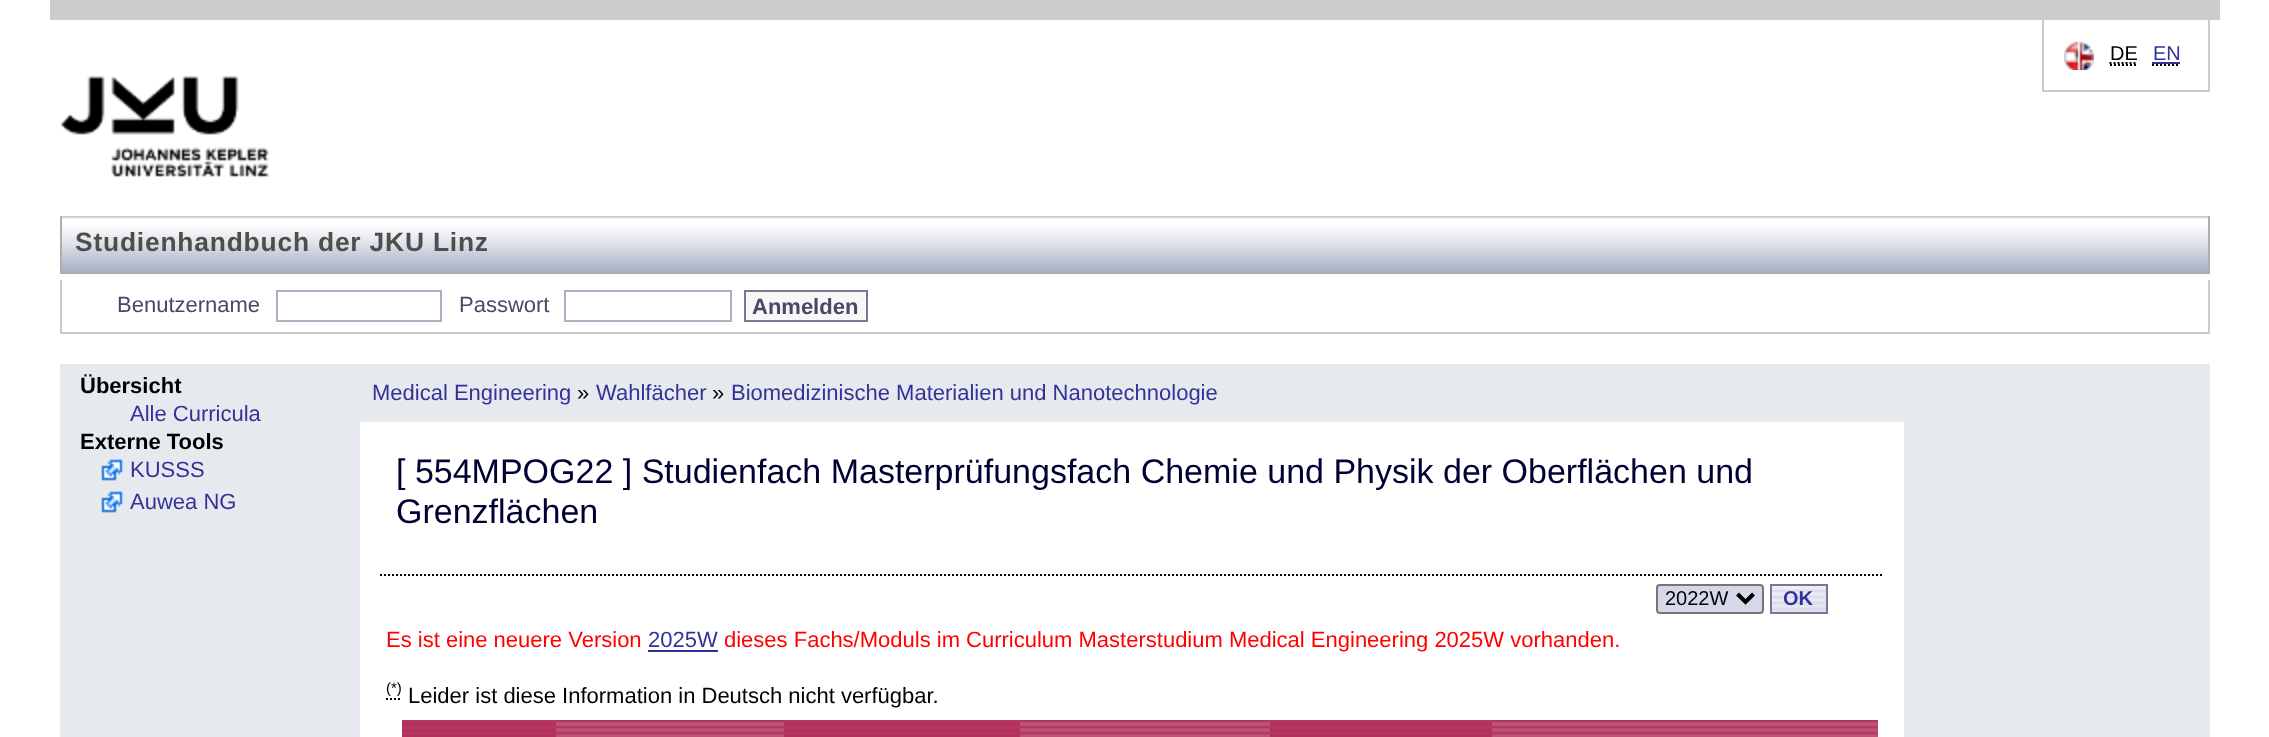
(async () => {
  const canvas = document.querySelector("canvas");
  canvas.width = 2269;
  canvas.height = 737;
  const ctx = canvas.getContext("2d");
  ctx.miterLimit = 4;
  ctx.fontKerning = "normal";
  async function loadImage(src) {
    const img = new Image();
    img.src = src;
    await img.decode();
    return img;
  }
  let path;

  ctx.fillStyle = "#ffffff";
  ctx.fillRect(0, 0, 2269, 737);
  for (const [x, y, w, h, color] of [
    [50, 0, 2170, 20, "#cccccc"],
    [2208, 20, 2, 72, "#cccccc"],
    [2042, 90, 168, 2, "#cccccc"],
    [2042, 20, 2, 72, "#cccccc"],
  ]) {
    ctx.fillStyle = color;
    ctx.fillRect(x, y, w, h);
  }
  ctx.drawImage(await loadImage("img/1.png"), 2064, 41, 30, 29);
  path = new Path2D("M2110 65H2136M2109.5 63H2137");
  ctx.strokeStyle = "#000000";
  ctx.lineWidth = 2;
  ctx.setLineDash([2, 2]);
  ctx.stroke(path);
  path = new Path2D("M2152 65H2180");
  ctx.stroke(path);
  ctx.fillStyle = "#333298";
  ctx.fillRect(2152, 62, 28, 2);
  ctx.drawImage(await loadImage("img/2.png"), 60, 76, 209, 102);
  ctx.drawImage(await loadImage("img/3.png"), 62, 216, 2146, 56);
  for (const [x, y, w, h, color] of [
    [2208, 216, 2, 58, "#aeaeae"],
    [60, 272, 2150, 2, "#aeaeae"],
    [60, 216, 2, 58, "#aeaeae"],
    [2208, 280, 2, 54, "#cccccc"],
    [60, 332, 2150, 2, "#cccccc"],
    [60, 280, 2, 54, "#cccccc"],
  ]) {
    ctx.fillStyle = color;
    ctx.fillRect(x, y, w, h);
  }
  ctx.strokeStyle = "#b0aec3";
  ctx.setLineDash([]);
  ctx.strokeRect(277, 291, 164, 30);
  ctx.strokeRect(565, 291, 166, 30);
  ctx.fillStyle = "#f7f7f7";
  ctx.beginPath();
  ctx.rect(745, 291, 122, 30);
  ctx.fill();
  ctx.strokeStyle = "#747895";
  ctx.stroke();
  ctx.fillStyle = "#e6e9ee";
  ctx.fillRect(60, 364, 300, 373);
  ctx.drawImage(await loadImage("img/4.png"), 101, 459, 22, 22);
  ctx.drawImage(await loadImage("img/4.png"), 101, 491, 22, 22);
  ctx.fillRect(360, 364, 1850, 58);
  ctx.fillRect(1904, 420, 2, 317);
  path = new Path2D("M380 575H1884");
  ctx.strokeStyle = "#000000";
  ctx.setLineDash([2, 2]);
  ctx.stroke(path);
  ctx.fillStyle = "#d6d7e9";
  ctx.beginPath();
  ctx.roundRect(1657, 585, 106, 28, 3);
  ctx.fill();
  ctx.strokeStyle = "#767676";
  ctx.setLineDash([]);
  ctx.stroke();
  path = new Path2D("M1737.5 594L1745.5 602L1753.5 594");
  ctx.strokeStyle = "#000000";
  ctx.lineWidth = 4;
  ctx.stroke(path);
  ctx.drawImage(await loadImage("img/5.png"), 1772, 586, 54, 26);
  ctx.strokeStyle = "#747895";
  ctx.lineWidth = 2;
  ctx.strokeRect(1771, 585, 56, 28);
  ctx.fillStyle = "#333298";
  ctx.fillRect(648, 650, 70, 2);
  path = new Path2D("M386 699H402");
  ctx.strokeStyle = "#000000";
  ctx.setLineDash([2, 2]);
  ctx.stroke(path);
  ctx.drawImage(await loadImage("img/6.png"), 402, 720, 154, 17);
  ctx.drawImage(await loadImage("img/7.png"), 556, 720, 228, 17);
  ctx.drawImage(await loadImage("img/8.png"), 784, 720, 236, 17);
  ctx.drawImage(await loadImage("img/9.png"), 1020, 720, 250, 17);
  ctx.drawImage(await loadImage("img/10.png"), 1270, 720, 222, 17);
  ctx.drawImage(await loadImage("img/11.png"), 1492, 720, 386, 17);
  ctx.fillStyle = "#e6e9ee";
  ctx.fillRect(1906, 422, 304, 315);
  ctx.font = "20px Liberation Sans";
  ctx.fillStyle = "#000000";
  ctx.fillText("DE", 2110, 60);
  ctx.fillStyle = "#333298";
  ctx.fillText("EN", 2153, 60);
  ctx.letterSpacing = "0.8px";
  ctx.font = "bold 26.4px Liberation Sans";
  ctx.fillStyle = "#4e4e4e";
  ctx.fillText("Studienhandbuch der JKU Linz", 75, 251);
  ctx.letterSpacing = "0px";
  ctx.font = "22px Liberation Sans";
  ctx.fillStyle = "#474766";
  ctx.fillText("Benutzername", 117, 312);
  ctx.fillText("Passwort", 459, 312);
  ctx.font = "bold 22px Liberation Sans";
  ctx.fillText("Anmelden", 752, 314);
  ctx.fillStyle = "#000000";
  ctx.fillText("Übersicht", 80, 393);
  ctx.font = "22px Liberation Sans";
  ctx.fillStyle = "#333298";
  ctx.fillText("Alle Curricula", 130, 421);
  ctx.font = "bold 22px Liberation Sans";
  ctx.fillStyle = "#000000";
  ctx.fillText("Externe Tools", 80, 449);
  ctx.font = "22px Liberation Sans";
  ctx.fillStyle = "#333298";
  for (const [text, x, y] of [
    ["KUSSS", 130, 477],
    ["Auwea NG", 130, 509],
    ["Medical Engineering", 372, 400],
  ]) {
    ctx.fillText(text, x, y);
  }
  ctx.fillStyle = "#000000";
  ctx.fillText("»", 577, 400);
  ctx.fillStyle = "#333298";
  ctx.fillText("Wahlfächer", 596, 400);
  ctx.fillStyle = "#000000";
  ctx.fillText("»", 712, 400);
  ctx.fillStyle = "#333298";
  ctx.fillText("Biomedizinische Materialien und Nanotechnologie", 731, 400);
  ctx.font = "34px Liberation Sans";
  ctx.fillStyle = "#000033";
  ctx.fillText("[ 554MPOG22 ] Studienfach Masterprüfungsfach Chemie und Physik der Oberflächen und", 396, 483);
  ctx.fillText("Grenzflächen", 396, 523);
  ctx.font = "20px Liberation Sans";
  ctx.fillStyle = "#000000";
  ctx.fillText("2022W", 1665, 605);
  ctx.font = "bold 20px Liberation Sans";
  ctx.fillStyle = "#333298";
  ctx.fillText("OK", 1783, 605);
  ctx.font = "22px Liberation Sans";
  ctx.fillStyle = "#ff0000";
  ctx.fillText("Es ist eine neuere Version", 386, 647);
  ctx.fillStyle = "#333298";
  ctx.fillText("2025W", 648, 647);
  ctx.fillStyle = "#ff0000";
  ctx.fillText("dieses Fachs/Moduls im Curriculum Masterstudium Medical Engineering 2025W vorhanden.", 724, 647);
  ctx.font = "15px Liberation Sans";
  ctx.fillStyle = "#000000";
  ctx.fillText("(*)", 386, 693);
  ctx.font = "22px Liberation Sans";
  ctx.fillText("Leider ist diese Information in Deutsch nicht verfügbar.", 408, 703);
})();
